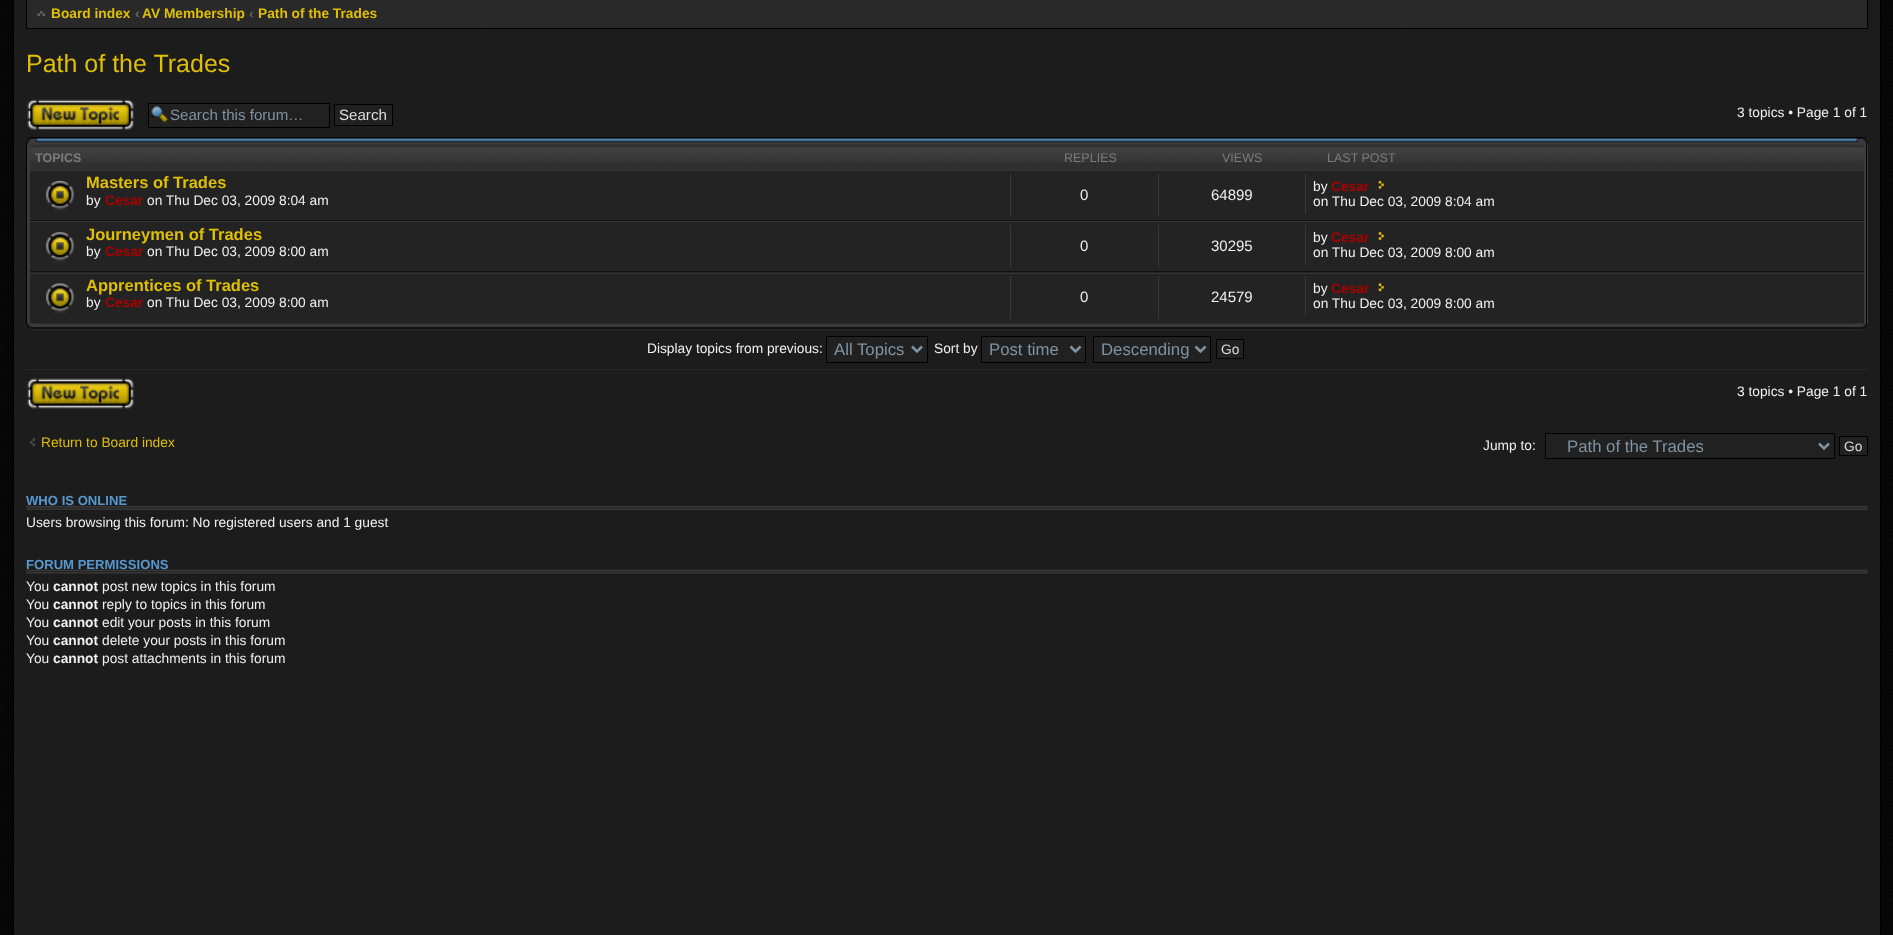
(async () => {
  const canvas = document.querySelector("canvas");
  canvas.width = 1893;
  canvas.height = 935;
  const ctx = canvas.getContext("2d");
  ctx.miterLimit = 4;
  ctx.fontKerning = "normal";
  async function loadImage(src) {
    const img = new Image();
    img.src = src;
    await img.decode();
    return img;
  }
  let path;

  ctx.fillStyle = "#ffffff";
  ctx.fillRect(0, 0, 1893, 935);
  ctx.drawImage(await loadImage("img/1.png"), 0, 0, 1893, 935);
  for (const [x, y, w, h, color] of [
    [14, 0, 1866, 935, "#1c1c1c"],
    [1880, 0, 1, 935, "#000000"],
    [13, 0, 1, 935, "#000000"],
  ]) {
    ctx.fillStyle = color;
    ctx.fillRect(x, y, w, h);
  }
  ctx.fillStyle = "#292929";
  ctx.beginPath();
  ctx.rect(26.5, -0.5, 1841, 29);
  ctx.fill();
  ctx.strokeStyle = "#000000";
  ctx.stroke();
  ctx.drawImage(await loadImage("img/2.png"), 37, 11, 9, 6);
  ctx.drawImage(await loadImage("img/3.png"), 27, 99, 107, 31);
  ctx.fillStyle = "#212121";
  ctx.fillRect(149, 104, 180, 23);
  ctx.drawImage(await loadImage("img/4.png"), 150, 105, 18, 18);
  ctx.strokeRect(148.5, 103.5, 181, 24);
  ctx.beginPath();
  ctx.rect(334.5, 104.5, 58, 21);
  ctx.fill();
  ctx.stroke();
  ctx.drawImage(await loadImage("img/5.png"), 26, 137, 1842, 8);
  ctx.drawImage(await loadImage("img/6.png"), 26, 137, 15, 8);
  ctx.drawImage(await loadImage("img/7.png"), 1853, 137, 15, 8);
  for (const [x, y, w, h, color] of [
    [27, 145, 1841, 179, "#3b3b3b"],
    [1866, 145, 1, 179, "#000000"],
    [26, 145, 1, 179, "#000000"],
    [30, 171, 1834, 152, "#232323"],
    [30, 145, 1834, 25, "#303030"],
  ]) {
    ctx.fillStyle = color;
    ctx.fillRect(x, y, w, h);
  }
  ctx.drawImage(await loadImage("img/8.png"), 30, 147, 1834, 16);
  ctx.fillStyle = "#363636";
  ctx.fillRect(30, 170, 1834, 1);
  ctx.fillStyle = "#111111";
  ctx.fillRect(30, 220, 1834, 1);
  ctx.drawImage(await loadImage("img/9.png"), 46, 180, 28, 31);
  for (const [x, y, w, h, color] of [
    [1010, 174, 1, 42, "#393939"],
    [1158, 174, 1, 42, "#393939"],
    [1305, 174, 1, 40, "#393939"],
  ]) {
    ctx.fillStyle = color;
    ctx.fillRect(x, y, w, h);
  }
  ctx.drawImage(await loadImage("img/10.png"), 1378, 180, 6, 9);
  ctx.fillStyle = "#363636";
  ctx.fillRect(30, 221, 1834, 1);
  ctx.fillStyle = "#111111";
  ctx.fillRect(30, 271, 1834, 1);
  ctx.drawImage(await loadImage("img/11.png"), 46, 232, 28, 31);
  for (const [x, y, w, h, color] of [
    [1010, 225, 1, 43, "#393939"],
    [1158, 225, 1, 43, "#393939"],
    [1305, 225, 1, 40, "#393939"],
  ]) {
    ctx.fillStyle = color;
    ctx.fillRect(x, y, w, h);
  }
  ctx.drawImage(await loadImage("img/12.png"), 1378, 232, 6, 8);
  ctx.fillStyle = "#363636";
  ctx.fillRect(30, 273, 1834, 1);
  ctx.fillStyle = "#111111";
  ctx.fillRect(30, 323, 1834, 1);
  ctx.drawImage(await loadImage("img/13.png"), 46, 283, 28, 31);
  for (const [x, y, w, h, color] of [
    [1010, 276, 1, 43, "#393939"],
    [1158, 276, 1, 43, "#393939"],
    [1305, 276, 1, 40, "#393939"],
  ]) {
    ctx.fillStyle = color;
    ctx.fillRect(x, y, w, h);
  }
  ctx.drawImage(await loadImage("img/14.png"), 1378, 283, 6, 9);
  ctx.drawImage(await loadImage("img/15.png"), 26, 323, 1842, 8);
  ctx.drawImage(await loadImage("img/16.png"), 26, 323, 13, 8);
  ctx.drawImage(await loadImage("img/17.png"), 1855, 323, 13, 8);
  ctx.fillStyle = "#212121";
  ctx.beginPath();
  ctx.rect(826.5, 336.5, 101, 26);
  ctx.fill();
  ctx.stroke();
  path = new Path2D("M912 346.5L917 351.5L922 346.5");
  ctx.strokeStyle = "#8093a2";
  ctx.lineWidth = 2.5;
  ctx.stroke(path);
  ctx.beginPath();
  ctx.rect(981.5, 336.5, 104, 26);
  ctx.fill();
  ctx.strokeStyle = "#000000";
  ctx.lineWidth = 1;
  ctx.stroke();
  path = new Path2D("M1070.5 346.5L1075.5 351.5L1080.5 346.5");
  ctx.strokeStyle = "#8093a2";
  ctx.lineWidth = 2.5;
  ctx.stroke(path);
  ctx.beginPath();
  ctx.rect(1093.5, 336.5, 117, 26);
  ctx.fill();
  ctx.strokeStyle = "#000000";
  ctx.lineWidth = 1;
  ctx.stroke();
  path = new Path2D("M1195.5 346.5L1200.5 351.5L1205.5 346.5");
  ctx.strokeStyle = "#8093a2";
  ctx.lineWidth = 2.5;
  ctx.stroke(path);
  ctx.beginPath();
  ctx.rect(1216.5, 339.5, 27, 19);
  ctx.fill();
  ctx.strokeStyle = "#000000";
  ctx.lineWidth = 1;
  ctx.stroke();
  ctx.fillStyle = "#282828";
  ctx.fillRect(26, 369, 1842, 1);
  ctx.drawImage(await loadImage("img/18.png"), 27, 378, 107, 31);
  ctx.drawImage(await loadImage("img/19.png"), 30, 438, 5, 8);
  ctx.fillStyle = "#212121";
  ctx.beginPath();
  ctx.rect(1545.5, 433.5, 289, 25);
  ctx.fill();
  ctx.stroke();
  path = new Path2D("M1819 443.5L1824 448.5L1829 443.5");
  ctx.strokeStyle = "#8093a2";
  ctx.lineWidth = 2.5;
  ctx.stroke(path);
  ctx.beginPath();
  ctx.rect(1839.5, 436.5, 28, 19);
  ctx.fill();
  ctx.strokeStyle = "#000000";
  ctx.lineWidth = 1;
  ctx.stroke();
  ctx.drawImage(await loadImage("img/20.png"), 26, 506, 1842, 4);
  ctx.drawImage(await loadImage("img/21.png"), 26, 569, 1842, 5);
  ctx.font = "bold 13.75px Liberation Sans";
  ctx.fillStyle = "#e0bf07";
  ctx.fillText("Board index", 51, 18);
  ctx.fillStyle = "#666666";
  ctx.fillText("‹", 135, 18);
  ctx.fillStyle = "#e0bf07";
  ctx.fillText("AV Membership", 142, 18);
  ctx.fillStyle = "#666666";
  ctx.fillText("‹", 249, 18);
  ctx.fillStyle = "#e0bf07";
  ctx.fillText("Path of the Trades", 258, 18);
  ctx.font = "25px Liberation Sans";
  ctx.fillText("Path of the Trades", 26, 72);
  ctx.font = "15.1px Liberation Sans";
  ctx.fillStyle = "#8093a2";
  ctx.fillText("Search this forum…", 170, 120);
  ctx.fillStyle = "#dddddd";
  ctx.fillText("Search", 339, 120);
  ctx.font = "13.75px Liberation Sans";
  ctx.fillStyle = "#f0f0f0";
  ctx.fillText("3 topics • Page 1 of 1", 1737, 117);
  ctx.font = "bold 12.5px Liberation Sans";
  ctx.fillStyle = "#7c7c7c";
  ctx.fillText("TOPICS", 35, 162);
  ctx.font = "12.5px Liberation Sans";
  for (const [text, x, y] of [
    ["REPLIES", 1064, 162],
    ["VIEWS", 1222, 162],
    ["LAST POST", 1327, 162],
  ]) {
    ctx.fillText(text, x, y);
  }
  ctx.font = "bold 16.5px Liberation Sans";
  ctx.fillStyle = "#e0bf07";
  ctx.fillText("Masters of Trades", 86, 188);
  ctx.font = "13.75px Liberation Sans";
  ctx.fillStyle = "#f0f0f0";
  ctx.fillText("by", 86, 205);
  ctx.font = "bold 13.75px Liberation Sans";
  ctx.fillStyle = "#aa0000";
  ctx.fillText("Cesar", 105, 205);
  ctx.font = "13.75px Liberation Sans";
  ctx.fillStyle = "#f0f0f0";
  ctx.fillText("on Thu Dec 03, 2009 8:04 am", 147, 205);
  ctx.font = "15px Liberation Sans";
  ctx.fillText("0", 1080, 200);
  ctx.fillText("64899", 1211, 200);
  ctx.font = "13.75px Liberation Sans";
  ctx.fillText("by", 1313, 191);
  ctx.font = "bold 13.75px Liberation Sans";
  ctx.fillStyle = "#aa0000";
  ctx.fillText("Cesar", 1331, 191);
  ctx.font = "13.75px Liberation Sans";
  ctx.fillStyle = "#f0f0f0";
  ctx.fillText("on Thu Dec 03, 2009 8:04 am", 1313, 206);
  ctx.font = "bold 16.5px Liberation Sans";
  ctx.fillStyle = "#e0bf07";
  ctx.fillText("Journeymen of Trades", 86, 240);
  ctx.font = "13.75px Liberation Sans";
  ctx.fillStyle = "#f0f0f0";
  ctx.fillText("by", 86, 256);
  ctx.font = "bold 13.75px Liberation Sans";
  ctx.fillStyle = "#aa0000";
  ctx.fillText("Cesar", 105, 256);
  ctx.font = "13.75px Liberation Sans";
  ctx.fillStyle = "#f0f0f0";
  ctx.fillText("on Thu Dec 03, 2009 8:00 am", 147, 256);
  ctx.font = "15px Liberation Sans";
  ctx.fillText("0", 1080, 251);
  ctx.fillText("30295", 1211, 251);
  ctx.font = "13.75px Liberation Sans";
  ctx.fillText("by", 1313, 242);
  ctx.font = "bold 13.75px Liberation Sans";
  ctx.fillStyle = "#aa0000";
  ctx.fillText("Cesar", 1331, 242);
  ctx.font = "13.75px Liberation Sans";
  ctx.fillStyle = "#f0f0f0";
  ctx.fillText("on Thu Dec 03, 2009 8:00 am", 1313, 257);
  ctx.font = "bold 16.5px Liberation Sans";
  ctx.fillStyle = "#e0bf07";
  ctx.fillText("Apprentices of Trades", 86, 291);
  ctx.font = "13.75px Liberation Sans";
  ctx.fillStyle = "#f0f0f0";
  ctx.fillText("by", 86, 307);
  ctx.font = "bold 13.75px Liberation Sans";
  ctx.fillStyle = "#aa0000";
  ctx.fillText("Cesar", 105, 307);
  ctx.font = "13.75px Liberation Sans";
  ctx.fillStyle = "#f0f0f0";
  ctx.fillText("on Thu Dec 03, 2009 8:00 am", 147, 307);
  ctx.font = "15px Liberation Sans";
  ctx.fillText("0", 1080, 302);
  ctx.fillText("24579", 1211, 302);
  ctx.font = "13.75px Liberation Sans";
  ctx.fillText("by", 1313, 293);
  ctx.font = "bold 13.75px Liberation Sans";
  ctx.fillStyle = "#aa0000";
  ctx.fillText("Cesar", 1331, 293);
  ctx.font = "13.75px Liberation Sans";
  ctx.fillStyle = "#f0f0f0";
  ctx.fillText("on Thu Dec 03, 2009 8:00 am", 1313, 308);
  ctx.fillText("Display topics from previous:", 647, 353);
  ctx.font = "16.75px Liberation Sans";
  ctx.fillStyle = "#8093a2";
  ctx.fillText("All Topics", 834, 355);
  ctx.font = "13.75px Liberation Sans";
  ctx.fillStyle = "#f0f0f0";
  ctx.fillText("Sort by", 934, 353);
  ctx.font = "16.75px Liberation Sans";
  ctx.fillStyle = "#8093a2";
  ctx.fillText("Post time", 989, 355);
  ctx.fillText("Descending", 1101, 355);
  ctx.font = "13.75px Liberation Sans";
  ctx.fillStyle = "#dddddd";
  ctx.fillText("Go", 1221, 354);
  ctx.fillStyle = "#f0f0f0";
  ctx.fillText("3 topics • Page 1 of 1", 1737, 396);
  ctx.fillStyle = "#e0bf07";
  ctx.fillText("Return to Board index", 41, 447);
  ctx.fillStyle = "#f0f0f0";
  ctx.fillText("Jump to:", 1483, 450);
  ctx.font = "16.75px Liberation Sans";
  ctx.fillStyle = "#8093a2";
  ctx.fillText("Path of the Trades", 1567, 452);
  ctx.font = "13.75px Liberation Sans";
  ctx.fillStyle = "#dddddd";
  ctx.fillText("Go", 1844, 451);
  ctx.font = "bold 13.1px Liberation Sans";
  ctx.fillStyle = "#5698cf";
  ctx.fillText("WHO IS ONLINE", 26, 505);
  ctx.font = "13.75px Liberation Sans";
  ctx.fillStyle = "#f0f0f0";
  ctx.fillText("Users browsing this forum: No registered users and 1 guest", 26, 527);
  ctx.font = "bold 13.1px Liberation Sans";
  ctx.fillStyle = "#5698cf";
  ctx.fillText("FORUM PERMISSIONS", 26, 569);
  ctx.font = "13.75px Liberation Sans";
  ctx.fillStyle = "#f0f0f0";
  ctx.fillText("You", 26, 591);
  ctx.font = "bold 13.75px Liberation Sans";
  ctx.fillText("cannot", 53, 591);
  ctx.font = "13.75px Liberation Sans";
  ctx.fillText("post new topics in this forum", 102, 591);
  ctx.fillText("You", 26, 609);
  ctx.font = "bold 13.75px Liberation Sans";
  ctx.fillText("cannot", 53, 609);
  ctx.font = "13.75px Liberation Sans";
  ctx.fillText("reply to topics in this forum", 102, 609);
  ctx.fillText("You", 26, 627);
  ctx.font = "bold 13.75px Liberation Sans";
  ctx.fillText("cannot", 53, 627);
  ctx.font = "13.75px Liberation Sans";
  ctx.fillText("edit your posts in this forum", 102, 627);
  ctx.fillText("You", 26, 645);
  ctx.font = "bold 13.75px Liberation Sans";
  ctx.fillText("cannot", 53, 645);
  ctx.font = "13.75px Liberation Sans";
  ctx.fillText("delete your posts in this forum", 102, 645);
  ctx.fillText("You", 26, 663);
  ctx.font = "bold 13.75px Liberation Sans";
  ctx.fillText("cannot", 53, 663);
  ctx.font = "13.75px Liberation Sans";
  ctx.fillText("post attachments in this forum", 102, 663);
})();
